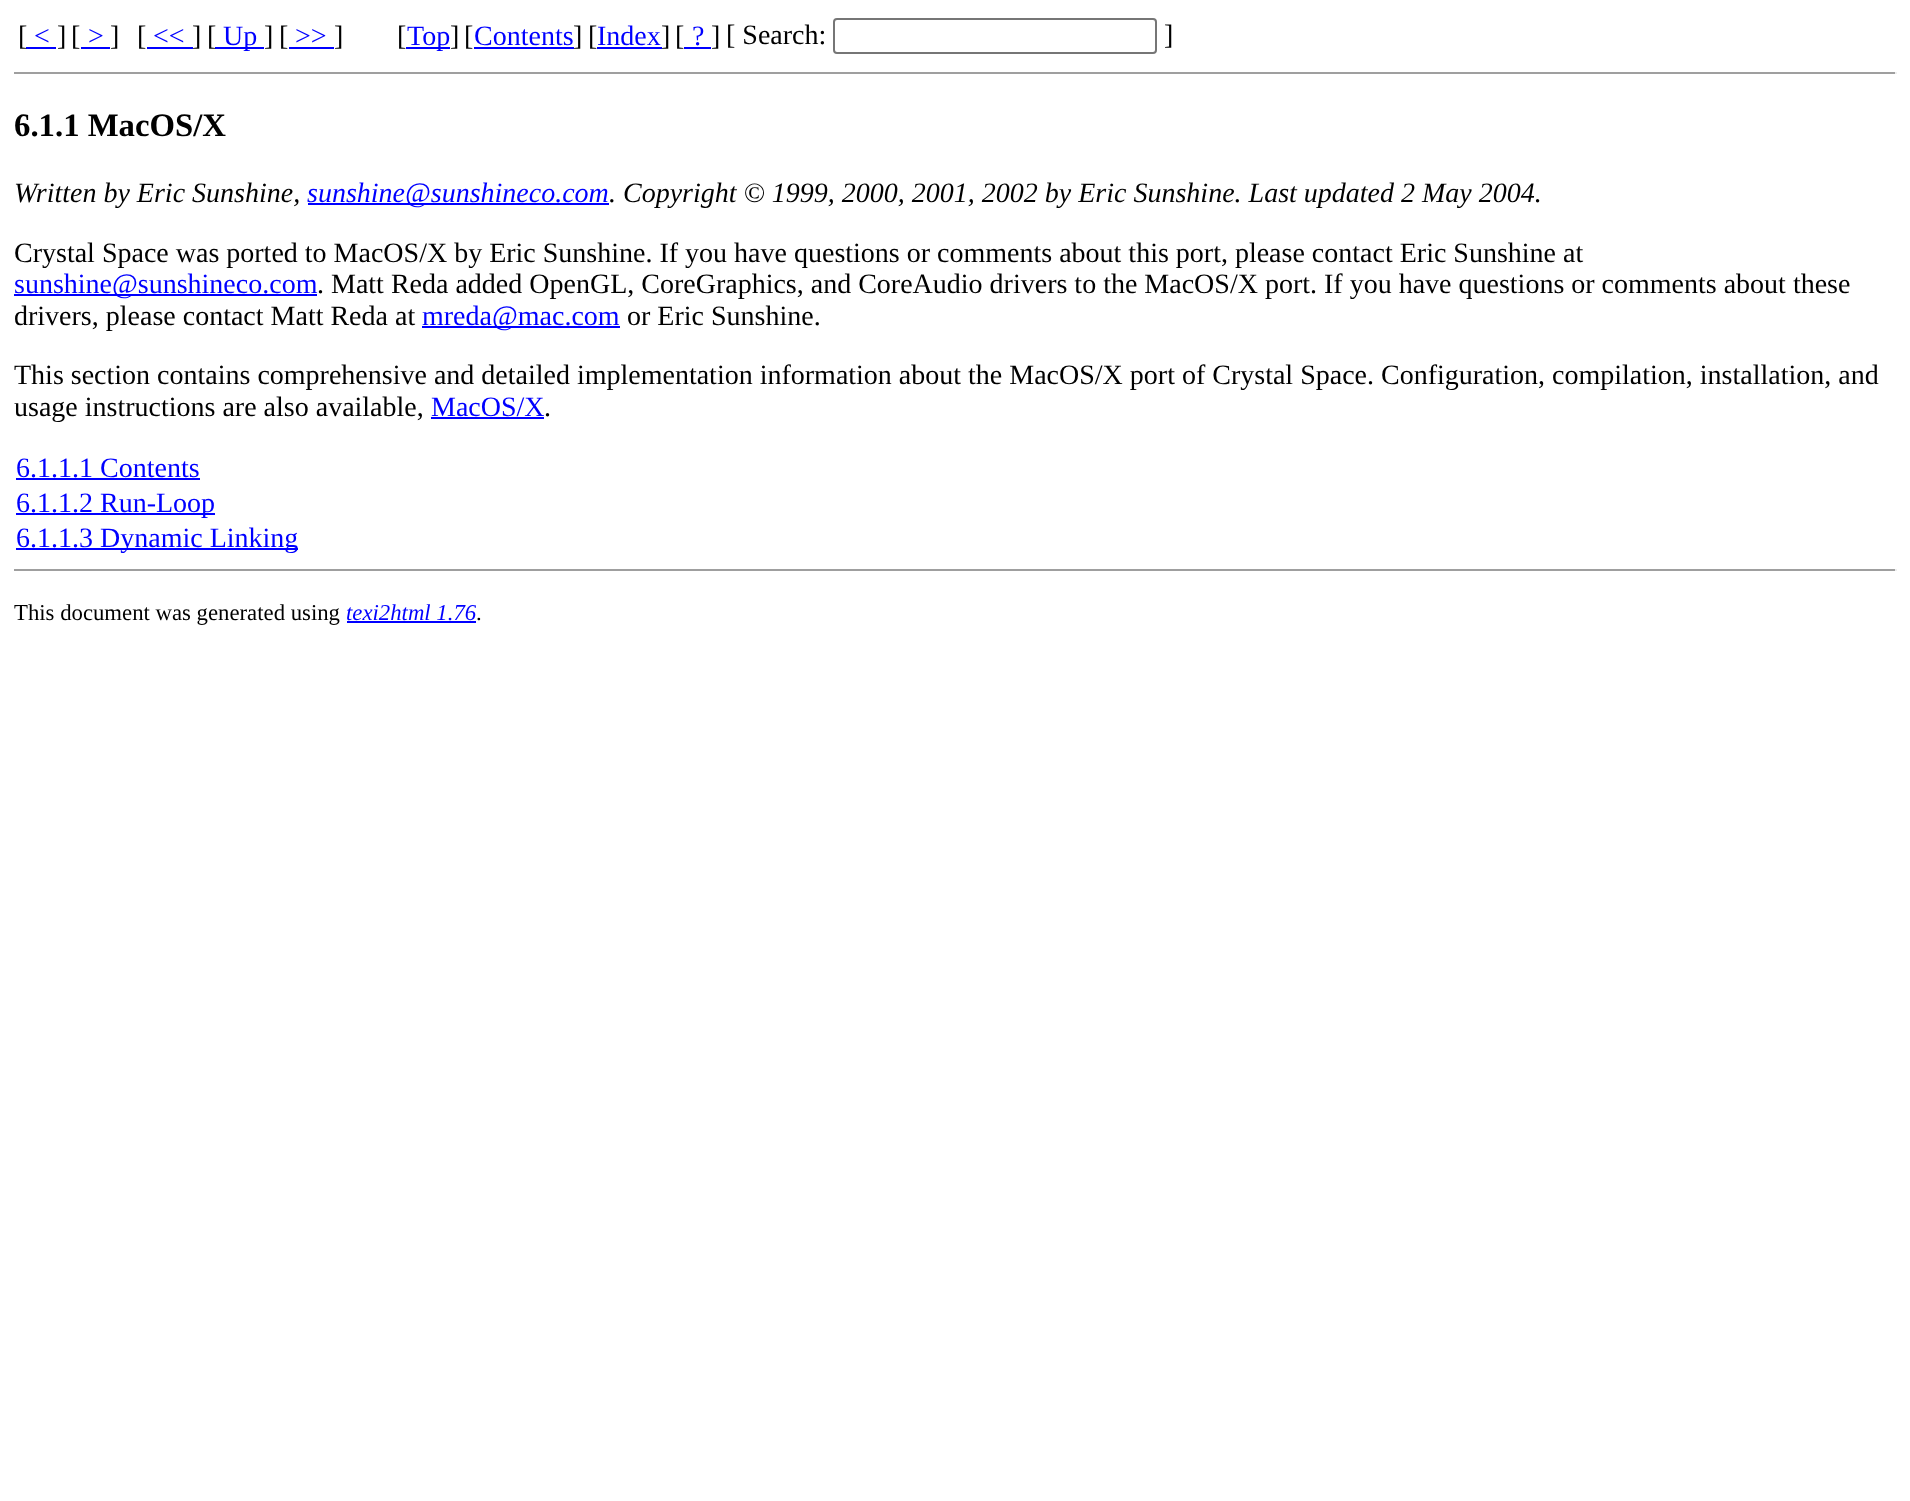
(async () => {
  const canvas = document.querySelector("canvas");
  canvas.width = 1910;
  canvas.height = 1501;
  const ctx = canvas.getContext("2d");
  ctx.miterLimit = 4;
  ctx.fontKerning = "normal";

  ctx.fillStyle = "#ffffff";
  ctx.fillRect(0, 0, 1910, 1501);
  for (const [x, y, w, h, color] of [
    [26, 47, 30, 2, "#0000ff"],
    [81, 47, 29, 2, "#0000ff"],
    [147, 47, 46, 2, "#0000ff"],
    [215, 47, 49, 2, "#0000ff"],
    [289, 47, 45, 2, "#0000ff"],
    [406, 47, 44, 2, "#0000ff"],
    [474, 47, 100, 2, "#0000ff"],
    [597, 47, 65, 2, "#0000ff"],
    [684, 47, 27, 2, "#0000ff"],
  ]) {
    ctx.fillStyle = color;
    ctx.fillRect(x, y, w, h);
  }
  ctx.beginPath();
  ctx.roundRect(834, 19, 322, 34, 3);
  ctx.strokeStyle = "#767676";
  ctx.lineWidth = 2;
  ctx.stroke();
  for (const [x, y, w, h, color] of [
    [14, 72, 1883, 2, "#9f9f9f"],
    [1895, 72, 2, 2, "#eeeeee"],
    [308, 203, 301, 2, "#0000ff"],
    [14, 294, 303, 2, "#0000ff"],
    [422, 326, 198, 2, "#0000ff"],
    [431, 417, 113, 2, "#0000ff"],
    [16, 478, 184, 2, "#0000ff"],
    [16, 513, 199, 2, "#0000ff"],
    [16, 548, 282, 2, "#0000ff"],
    [14, 569, 1883, 2, "#9f9f9f"],
    [1895, 569, 2, 2, "#eeeeee"],
    [347, 621, 129, 2, "#0000ff"],
  ]) {
    ctx.fillStyle = color;
    ctx.fillRect(x, y, w, h);
  }
  ctx.font = "28px Liberation Serif";
  ctx.fillStyle = "#000000";
  ctx.fillText("[", 18, 45);
  ctx.fillStyle = "#0000ff";
  ctx.fillText("<", 34, 45);
  ctx.fillStyle = "#000000";
  ctx.fillText("]", 57, 45);
  ctx.fillText("[", 71, 45);
  ctx.fillStyle = "#0000ff";
  ctx.fillText(">", 88, 45);
  ctx.fillStyle = "#000000";
  ctx.fillText("]", 110, 45);
  ctx.fillText("[", 137, 45);
  ctx.fillStyle = "#0000ff";
  ctx.fillText("<<", 153, 45);
  ctx.fillStyle = "#000000";
  ctx.fillText("]", 192, 45);
  ctx.fillText("[", 207, 45);
  ctx.fillStyle = "#0000ff";
  ctx.fillText("Up", 223, 45);
  ctx.fillStyle = "#000000";
  ctx.fillText("]", 264, 45);
  ctx.fillText("[", 279, 45);
  ctx.fillStyle = "#0000ff";
  ctx.fillText(">>", 295, 45);
  ctx.fillStyle = "#000000";
  ctx.fillText("]", 334, 45);
  ctx.fillText("[", 397, 45);
  ctx.fillStyle = "#0000ff";
  ctx.fillText("Top", 407, 45);
  ctx.fillStyle = "#000000";
  ctx.fillText("]", 450, 45);
  ctx.fillText("[", 464, 45);
  ctx.fillStyle = "#0000ff";
  ctx.fillText("Contents", 474, 45);
  ctx.fillStyle = "#000000";
  ctx.fillText("]", 573, 45);
  ctx.fillText("[", 588, 45);
  ctx.fillStyle = "#0000ff";
  ctx.fillText("Index", 597, 45);
  ctx.fillStyle = "#000000";
  ctx.fillText("]", 661, 45);
  ctx.fillText("[", 675, 45);
  ctx.fillStyle = "#0000ff";
  ctx.fillText("?", 692, 45);
  ctx.fillStyle = "#000000";
  for (const [text, x, y] of [
    ["]", 711, 45],
    ["[ Search:", 726, 44],
    ["]", 1164, 44],
  ]) {
    ctx.fillText(text, x, y);
  }
  ctx.font = "bold 32.75px Liberation Serif";
  ctx.fillText("6.1.1 MacOS/X", 14, 136);
  ctx.font = "italic 28px Liberation Serif";
  ctx.fillText("Written by Eric Sunshine,", 14, 202);
  ctx.fillStyle = "#0000ff";
  ctx.fillText("sunshine@sunshineco.com", 307, 202);
  ctx.fillStyle = "#000000";
  ctx.fillText(". Copyright © 1999, 2000, 2001, 2002 by Eric Sunshine. Last updated 2 May 2004.", 609, 202);
  ctx.font = "28px Liberation Serif";
  ctx.fillText("Crystal Space was ported to MacOS/X by Eric Sunshine. If you have questions or comments about this port, please contact Eric Sunshine at", 14, 262);
  ctx.fillStyle = "#0000ff";
  ctx.fillText("sunshine@sunshineco.com", 14, 293);
  ctx.fillStyle = "#000000";
  ctx.fillText(". Matt Reda added OpenGL, CoreGraphics, and CoreAudio drivers to the MacOS/X port. If you have questions or comments about these", 317, 293);
  ctx.fillText("drivers, please contact Matt Reda at", 14, 325);
  ctx.fillStyle = "#0000ff";
  ctx.fillText("mreda@mac.com", 422, 325);
  ctx.fillStyle = "#000000";
  for (const [text, x, y] of [
    ["or Eric Sunshine.", 627, 325],
    ["This section contains comprehensive and detailed implementation information about the MacOS/X port of Crystal Space. Configuration, compilation, installation, and", 14, 384],
    ["usage instructions are also available,", 14, 416],
  ]) {
    ctx.fillText(text, x, y);
  }
  ctx.fillStyle = "#0000ff";
  ctx.fillText("MacOS/X", 431, 416);
  ctx.fillStyle = "#000000";
  ctx.fillText(".", 544, 416);
  ctx.fillStyle = "#0000ff";
  for (const [text, x, y] of [
    ["6.1.1.1 Contents", 16, 477],
    ["6.1.1.2 Run-Loop", 16, 512],
    ["6.1.1.3 Dynamic Linking", 16, 547],
  ]) {
    ctx.fillText(text, x, y);
  }
  ctx.font = "22.75px Liberation Serif";
  ctx.fillStyle = "#000000";
  ctx.fillText("This document was generated using", 14, 620);
  ctx.font = "italic 22.75px Liberation Serif";
  ctx.fillStyle = "#0000ff";
  ctx.fillText("texi2html 1.76", 346, 620);
  ctx.font = "22.75px Liberation Serif";
  ctx.fillStyle = "#000000";
  ctx.fillText(".", 476, 620);
})();
